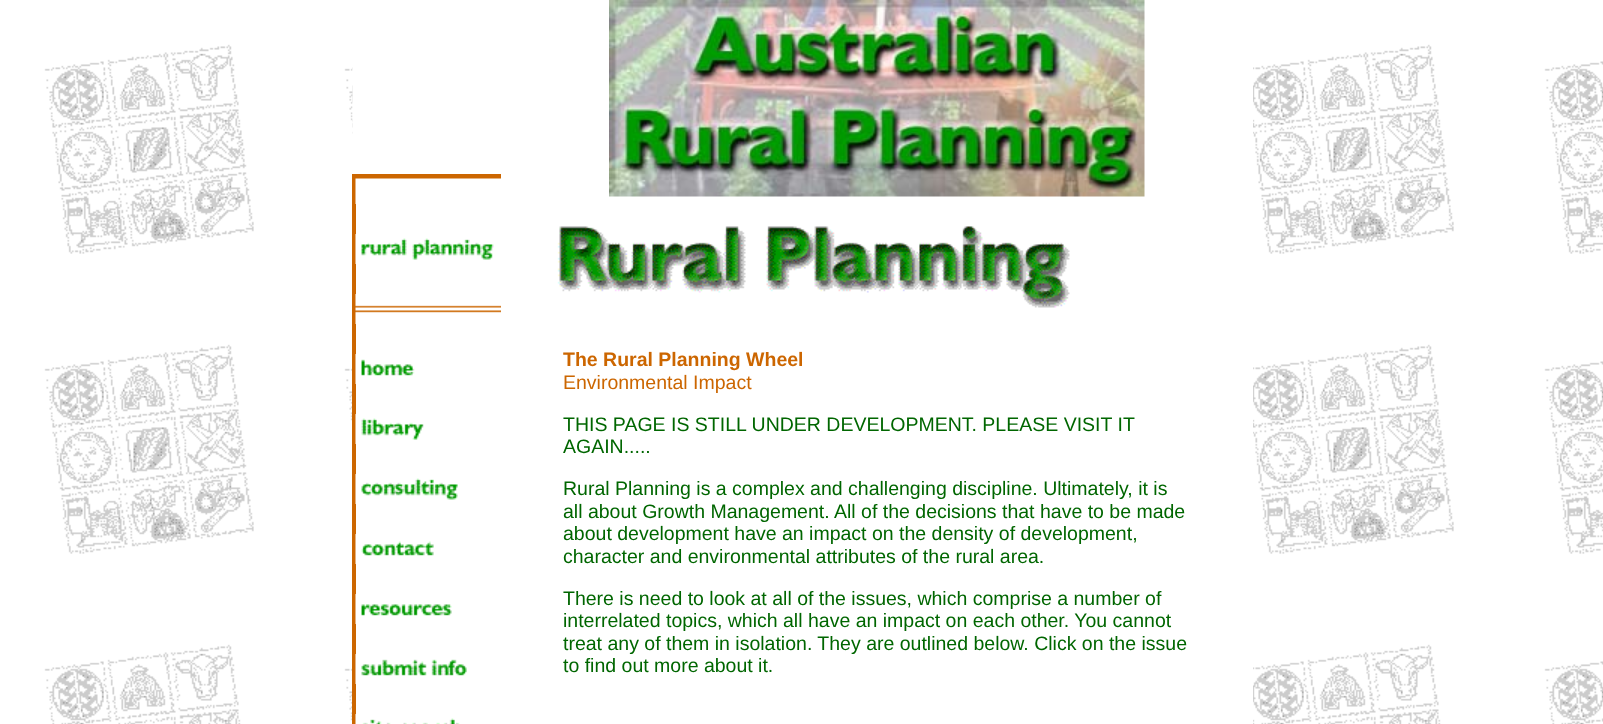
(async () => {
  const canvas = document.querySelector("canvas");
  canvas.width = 1603;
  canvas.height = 724;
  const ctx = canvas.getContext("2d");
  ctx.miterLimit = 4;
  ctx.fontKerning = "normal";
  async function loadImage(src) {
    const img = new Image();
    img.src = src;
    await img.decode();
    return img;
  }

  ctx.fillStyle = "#ffffff";
  ctx.fillRect(0, 0, 1603, 724);
  ctx.drawImage(await loadImage("img/1.png"), 44, 44, 1559, 680);
  for (const [x, y, w, h, color] of [
    [353, 44, 900, 680, "#ffffff"],
    [352, 67, 1, 67, "rgba(255, 255, 255, 0.5)"],
    [352, 174, 4, 550, "#cc6600"],
  ]) {
    ctx.fillStyle = color;
    ctx.fillRect(x, y, w, h);
  }
  ctx.drawImage(await loadImage("img/2.png"), 355, 174, 146, 30);
  ctx.drawImage(await loadImage("img/3.png"), 355, 234, 139, 30);
  ctx.drawImage(await loadImage("img/4.png"), 355, 294, 146, 30);
  ctx.drawImage(await loadImage("img/5.png"), 355, 354, 60, 30);
  ctx.drawImage(await loadImage("img/6.png"), 355, 414, 69, 30);
  ctx.drawImage(await loadImage("img/7.png"), 355, 474, 103, 30);
  ctx.drawImage(await loadImage("img/8.png"), 355, 534, 79, 30);
  ctx.drawImage(await loadImage("img/9.png"), 355, 594, 97, 30);
  ctx.drawImage(await loadImage("img/10.png"), 355, 654, 112, 30);
  ctx.drawImage(await loadImage("img/11.png"), 355, 714, 105, 10);
  ctx.drawImage(await loadImage("img/12.png"), 609, 0, 536, 197);
  ctx.drawImage(await loadImage("img/13.png"), 557, 226, 513, 82);
  ctx.font = "bold 19.5px Liberation Sans";
  ctx.fillText("The Rural Planning Wheel", 563, 366);
  ctx.font = "19.5px Liberation Sans";
  ctx.fillText("Environmental Impact", 563, 389);
  ctx.fillStyle = "#006600";
  for (const [text, x, y] of [
    ["THIS PAGE IS STILL UNDER DEVELOPMENT. PLEASE VISIT IT", 563, 431],
    ["AGAIN.....", 563, 453],
    ["Rural Planning is a complex and challenging discipline. Ultimately, it is", 563, 495],
    ["all about Growth Management. All of the decisions that have to be made", 563, 518],
    ["about development have an impact on the density of development,", 563, 540],
    ["character and environmental attributes of the rural area.", 563, 563],
    ["There is need to look at all of the issues, which comprise a number of", 563, 605],
    ["interrelated topics, which all have an impact on each other. You cannot", 563, 627],
    ["treat any of them in isolation. They are outlined below. Click on the issue", 563, 650],
    ["to find out more about it.", 563, 672],
  ]) {
    ctx.fillText(text, x, y);
  }
})();
